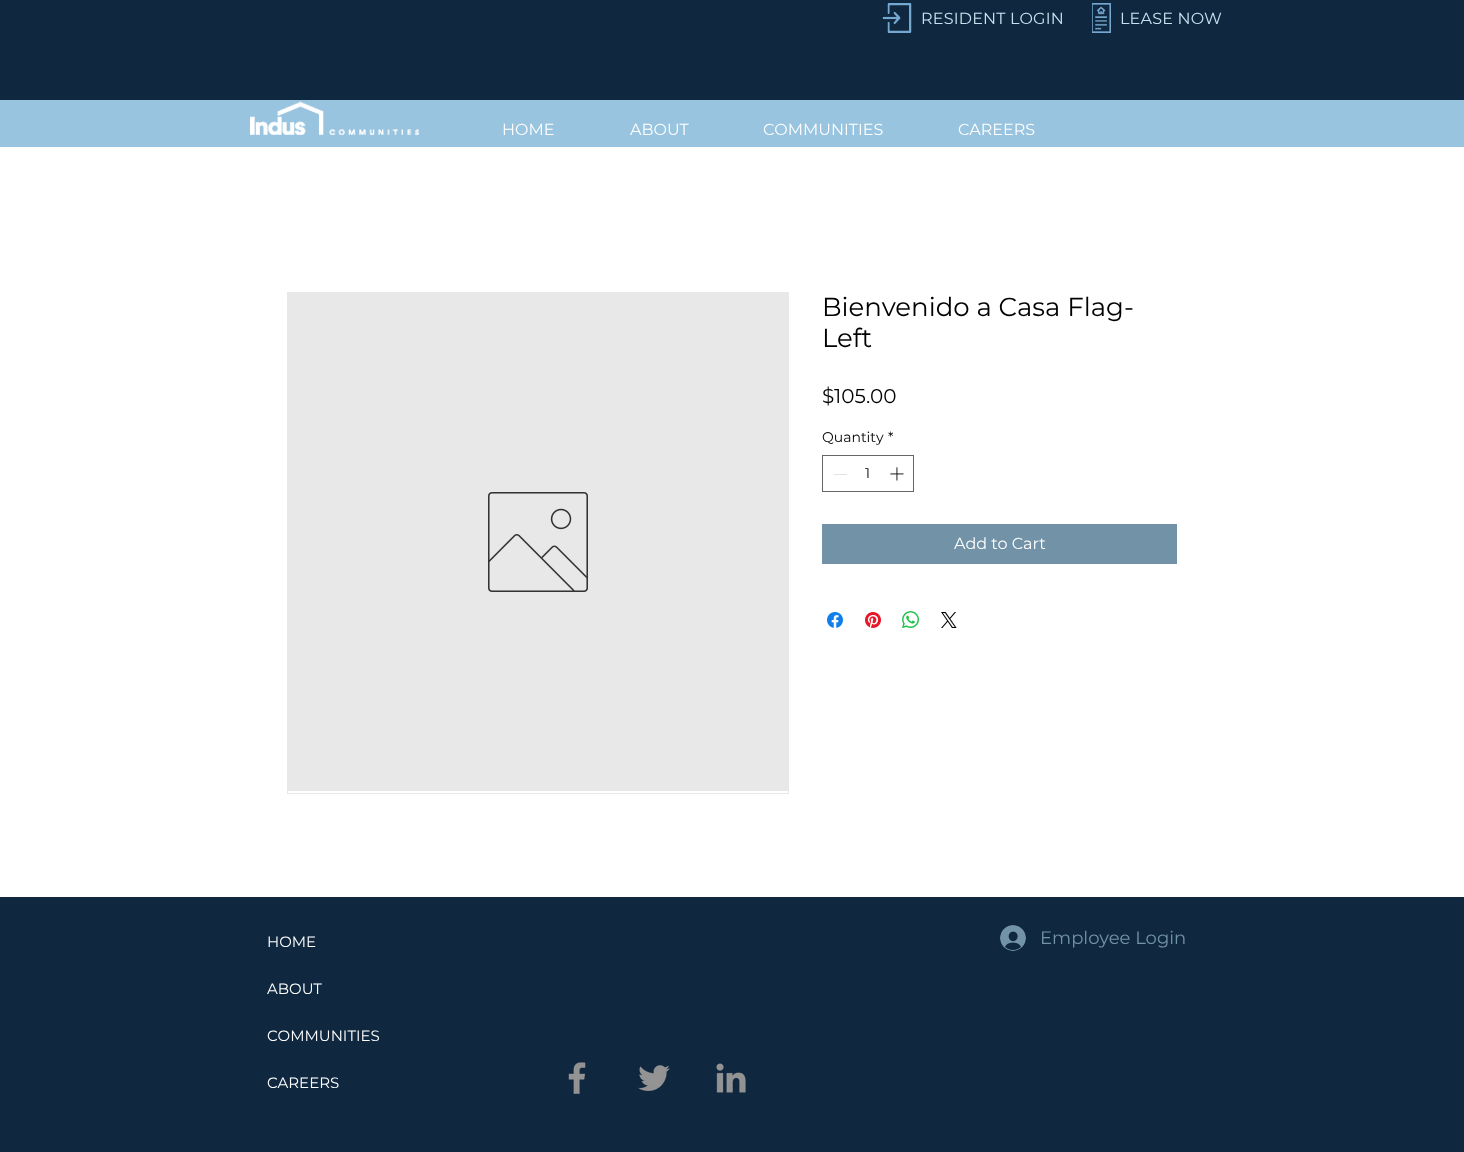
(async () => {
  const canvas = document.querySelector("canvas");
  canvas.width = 1464;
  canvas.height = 1152;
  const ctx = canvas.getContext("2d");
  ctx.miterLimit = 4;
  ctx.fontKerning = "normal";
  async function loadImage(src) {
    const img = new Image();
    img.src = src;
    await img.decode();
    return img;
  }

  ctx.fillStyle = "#ffffff";
  ctx.fillRect(0, 0, 1464, 1152);
  ctx.fillStyle = "#10283f";
  ctx.fillRect(0, 0, 1464, 100);
  ctx.drawImage(await loadImage("img/1.png"), 882, 3, 30, 30);
  ctx.drawImage(await loadImage("img/2.png"), 1092, 3, 19, 30);
  ctx.fillStyle = "#98c4df";
  ctx.fillRect(0, 100, 1464, 47);
  ctx.drawImage(await loadImage("img/3.png"), 250, 101, 169, 34);
  ctx.strokeStyle = "#e8e8e8";
  ctx.strokeRect(287.5, 292.5, 501, 501);
  ctx.fillStyle = "#e8e8e8";
  ctx.fillRect(288, 293, 500, 498);
  ctx.drawImage(await loadImage("img/4.png"), 488, 492, 100, 100);
  ctx.strokeStyle = "#666666";
  ctx.strokeRect(822.5, 455.5, 91, 36);
  ctx.fillStyle = "#e3e3e3";
  ctx.fillRect(834, 474, 13, 1);
  ctx.drawImage(await loadImage("img/5.png"), 890, 467, 14, 14);
  ctx.fillStyle = "#7293a7";
  ctx.fillRect(822, 524, 355, 40);
  ctx.drawImage(await loadImage("img/6.png"), 827, 612, 16, 16);
  ctx.drawImage(await loadImage("img/7.png"), 865, 612, 16, 16);
  ctx.drawImage(await loadImage("img/8.png"), 902, 611, 17, 17);
  ctx.drawImage(await loadImage("img/9.png"), 941, 612, 16, 16);
  ctx.fillStyle = "#10283f";
  ctx.fillRect(0, 897, 1464, 255);
  ctx.drawImage(await loadImage("img/10.png"), 568, 1062, 18, 32);
  ctx.drawImage(await loadImage("img/11.png"), 638, 1065, 32, 26);
  ctx.drawImage(await loadImage("img/12.png"), 716, 1063, 30, 30);
  ctx.drawImage(await loadImage("img/13.png"), 1000, 925, 26, 26);
  ctx.letterSpacing = "0.2px";
  ctx.font = "16px Montserrat";
  ctx.fillStyle = "#c9e1ef";
  ctx.fillText("RESIDENT LOGIN", 921, 24);
  ctx.fillText("LEASE NOW", 1120, 24);
  ctx.letterSpacing = "0px";
  ctx.fillStyle = "#ffffff";
  for (const [text, x, y] of [
    ["HOME", 502, 135],
    ["ABOUT", 630, 135],
    ["COMMUNITIES", 763, 135],
    ["CAREERS", 958, 135],
  ]) {
    ctx.fillText(text, x, y);
  }
  ctx.font = "26px Montserrat";
  ctx.fillStyle = "#000000";
  ctx.fillText("Bienvenido a Casa Flag-", 822, 316);
  ctx.fillText("Left", 822, 347);
  ctx.font = "20px Montserrat";
  ctx.fillText("$105.00", 822, 403);
  ctx.font = "14px Montserrat";
  for (const [text, x, y] of [
    ["Quantity", 822, 442],
    ["*", 888, 442],
    ["1", 865, 478],
  ]) {
    ctx.fillText(text, x, y);
  }
  ctx.font = "16px Montserrat";
  ctx.fillStyle = "#ffffff";
  ctx.fillText("Add to Cart", 954, 549);
  ctx.font = "15px Montserrat";
  for (const [text, x, y] of [
    ["HOME", 267, 947],
    ["ABOUT", 267, 994],
    ["COMMUNITIES", 267, 1041],
    ["CAREERS", 267, 1088],
  ]) {
    ctx.fillText(text, x, y);
  }
  ctx.font = "18px Montserrat";
  ctx.fillStyle = "#7293a7";
  ctx.fillText("Employee Login", 1040, 944);
})();
